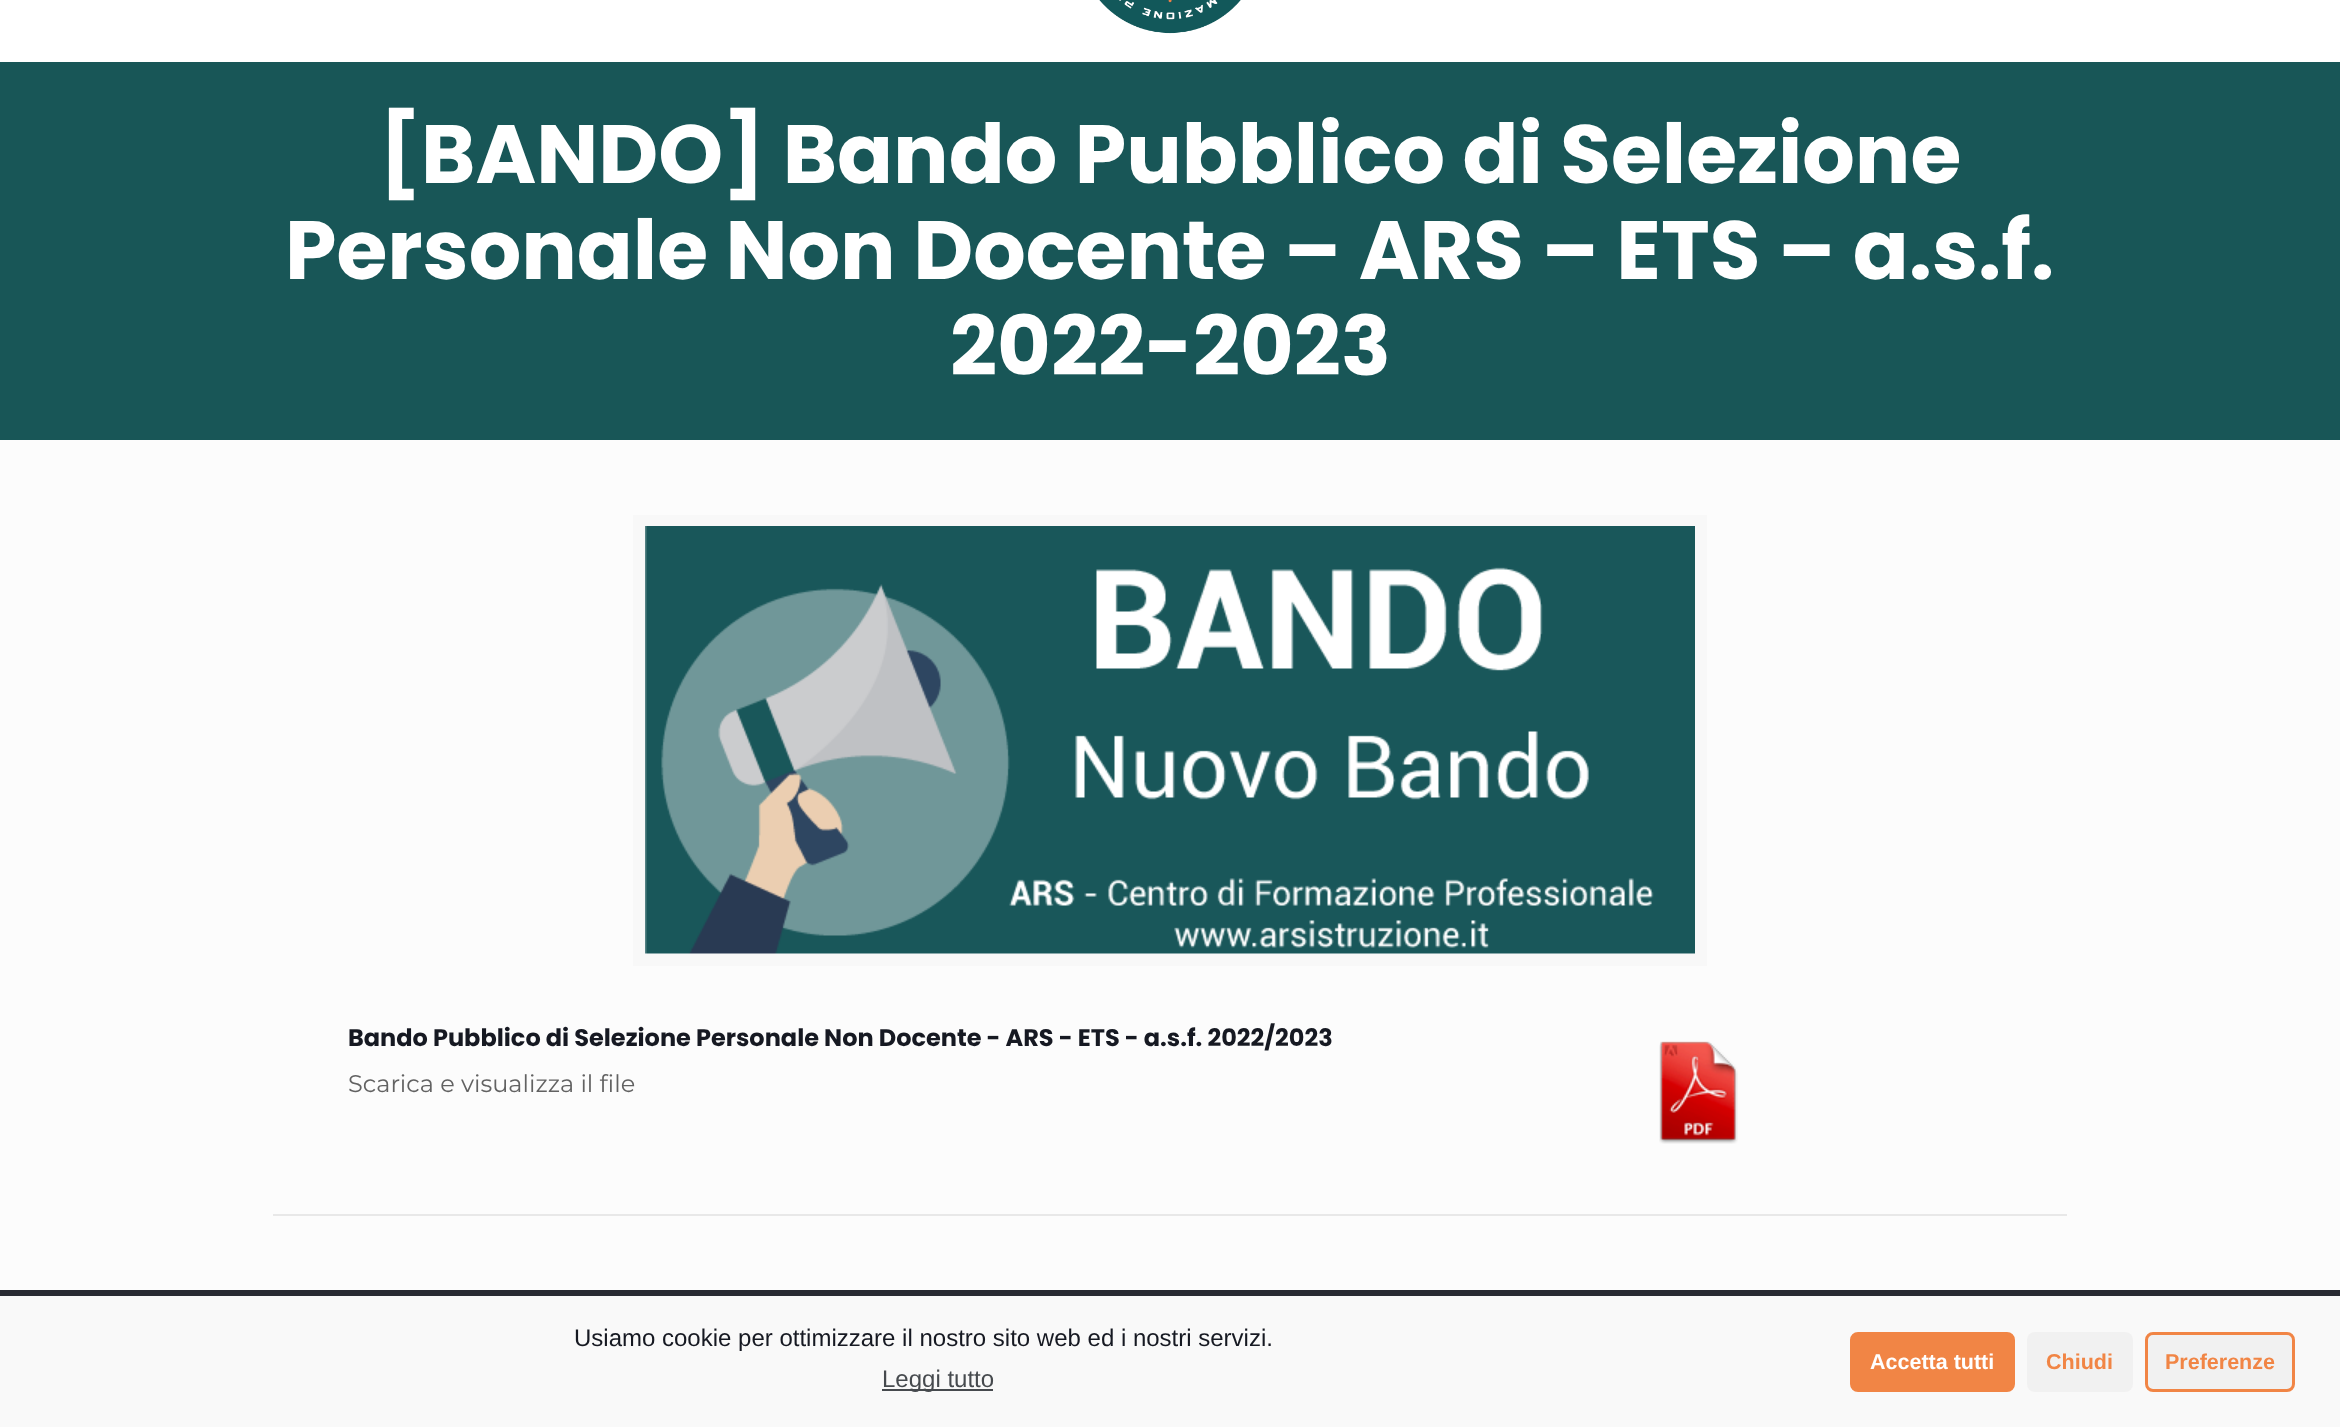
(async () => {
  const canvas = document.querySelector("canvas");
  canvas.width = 2340;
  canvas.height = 1427;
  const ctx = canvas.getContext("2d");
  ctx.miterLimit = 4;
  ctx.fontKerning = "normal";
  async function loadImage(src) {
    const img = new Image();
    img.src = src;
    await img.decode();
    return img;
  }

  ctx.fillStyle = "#fcfcfc";
  ctx.fillRect(0, 0, 2340, 1427);
  ctx.fillStyle = "#ffffff";
  ctx.fillRect(0, 0, 2340, 62);
  ctx.drawImage(await loadImage("img/1.png"), 1099, 0, 142, 34);
  ctx.fillStyle = "#185657";
  ctx.fillRect(0, 62, 2340, 378);
  ctx.strokeStyle = "#f8f8f8";
  ctx.lineWidth = 12;
  ctx.strokeRect(639, 521, 1062, 439);
  ctx.drawImage(await loadImage("img/2.png"), 645, 526, 1050, 428);
  ctx.drawImage(await loadImage("img/3.png"), 1659, 1041, 79, 103);
  for (const [x, y, w, h, color] of [
    [273, 1214, 1794, 2, "#e8e8e8"],
    [0, 1290, 2340, 6, "#292b33"],
    [0, 1296, 2340, 131, "#f9f9f9"],
    [882, 1389, 111, 2, "#464a4e"],
  ]) {
    ctx.fillStyle = color;
    ctx.fillRect(x, y, w, h);
  }
  ctx.fillStyle = "#f18545";
  ctx.beginPath();
  ctx.roundRect(1851.5, 1333.5, 162, 57, 6.5);
  ctx.fill();
  ctx.strokeStyle = "#f18545";
  ctx.lineWidth = 3;
  ctx.stroke();
  ctx.fillStyle = "#f1f1f1";
  ctx.beginPath();
  ctx.roundRect(2027, 1332, 106, 60, 8);
  ctx.fill();
  ctx.beginPath();
  ctx.roundRect(2146.5, 1333.5, 147, 57, 6.5);
  ctx.fill();
  ctx.stroke();
  ctx.font = "bold 82.5px Poppins";
  ctx.fillStyle = "#ffffff";
  for (const [text, x, y] of [
    ["[BANDO] Bando Pubblico di Selezione", 379, 183],
    ["Personale Non Docente – ARS – ETS – a.s.f.", 285, 279],
    ["2022-2023", 950, 375],
  ]) {
    ctx.fillText(text, x, y);
  }
  ctx.font = "bold 24px Poppins";
  ctx.fillStyle = "#161922";
  ctx.fillText("Bando Pubblico di Selezione Personale Non Docente - ARS - ETS - a.s.f. 2022/2023", 348, 1046);
  ctx.font = "100 24px Montserrat";
  ctx.fillStyle = "#626262";
  ctx.fillText("Scarica e visualizza il file", 348, 1092);
  ctx.font = "24px Liberation Sans";
  ctx.fillStyle = "#161922";
  ctx.fillText("Usiamo cookie per ottimizzare il nostro sito web ed i nostri servizi.", 574, 1346);
  ctx.fillStyle = "#464a4e";
  ctx.fillText("Leggi tutto", 882, 1387);
  ctx.font = "bold 21.5px Liberation Sans";
  ctx.fillStyle = "#ffffff";
  ctx.fillText("Accetta tutti", 1870, 1369);
  ctx.fillStyle = "#f18545";
  ctx.fillText("Chiudi", 2046, 1369);
  ctx.fillText("Preferenze", 2165, 1369);
})();
